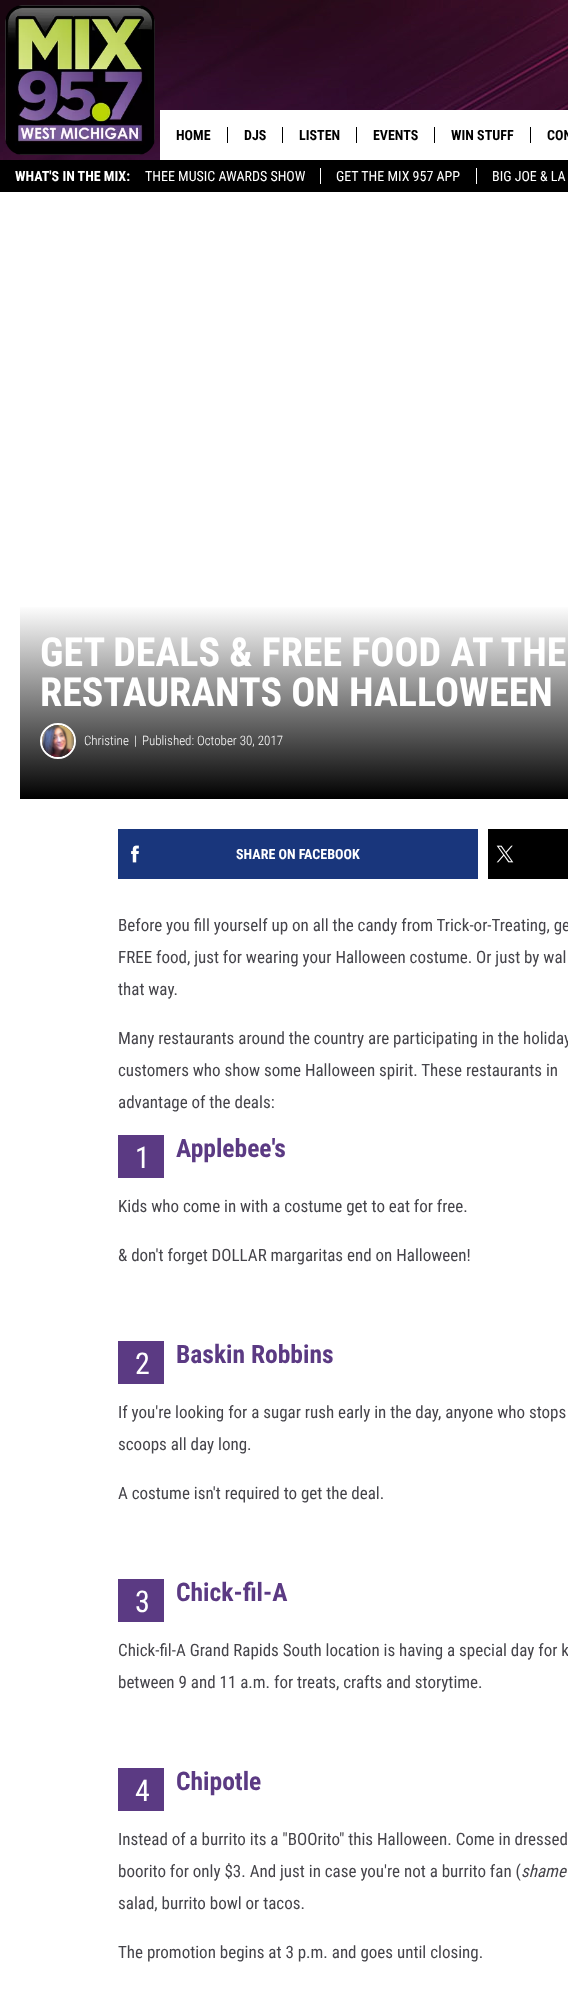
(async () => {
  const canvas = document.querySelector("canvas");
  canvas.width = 568;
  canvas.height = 2001;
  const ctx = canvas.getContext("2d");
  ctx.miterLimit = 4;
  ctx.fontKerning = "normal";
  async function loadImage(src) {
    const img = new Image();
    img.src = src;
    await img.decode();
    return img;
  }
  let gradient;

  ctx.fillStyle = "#ffffff";
  ctx.fillRect(0, 0, 568, 2001);
  ctx.drawImage(await loadImage("img/1.png"), 0, 0, 568, 160);
  ctx.drawImage(await loadImage("img/2.png"), 5, 5, 150, 150);
  for (const [x, y, w, h, color] of [
    [160, 110, 408, 50, "#ffffff"],
    [227, 127, 1, 16, "#000000"],
    [282, 127, 1, 16, "#000000"],
    [356, 127, 1, 16, "#000000"],
    [434, 127, 1, 16, "#000000"],
    [530, 127, 1, 16, "#000000"],
    [0, 160, 568, 32, "#000000"],
    [320, 168, 1, 16, "#ffffff"],
    [476, 168, 1, 16, "#ffffff"],
  ]) {
    ctx.fillStyle = color;
    ctx.fillRect(x, y, w, h);
  }
  gradient = ctx.createLinearGradient(483, 605, 483, 799);
  gradient.addColorStop(0, "#ffffff");
  gradient.addColorStop(1, "#000000");
  ctx.fillStyle = gradient;
  ctx.fillRect(20, 607, 548, 192);
  ctx.beginPath();
  ctx.arc(58, 741, 17, 0, Math.PI * 2);
  ctx.strokeStyle = "#ffffff";
  ctx.lineWidth = 2;
  ctx.stroke();
  ctx.drawImage(await loadImage("img/3.png"), 42, 725, 32, 32);
  ctx.fillStyle = "#19367c";
  ctx.fillRect(118, 829, 360, 50);
  ctx.drawImage(await loadImage("img/4.png"), 131, 845, 8, 18);
  ctx.fillStyle = "#000000";
  ctx.fillRect(488, 829, 80, 50);
  ctx.drawImage(await loadImage("img/5.png"), 496, 845, 18, 18);
  for (const [x, y, w, h, color] of [
    [118, 1135, 46, 43, "#5b3a83"],
    [118, 1341, 46, 43, "#5b3a83"],
    [118, 1579, 46, 43, "#5b3a83"],
    [118, 1768, 46, 43, "#5b3a83"],
  ]) {
    ctx.fillStyle = color;
    ctx.fillRect(x, y, w, h);
  }
  ctx.font = "bold 14px Roboto Condensed";
  ctx.fillStyle = "#000000";
  for (const [text, x, y] of [
    ["HOME", 176, 140],
    ["DJS", 244, 140],
    ["LISTEN", 299, 140],
    ["EVENTS", 373, 140],
    ["WIN STUFF", 451, 140],
    ["CON", 547, 140],
  ]) {
    ctx.fillText(text, x, y);
  }
  ctx.fillStyle = "#ffffff";
  ctx.fillText("WHAT'S IN THE MIX:", 15, 181);
  ctx.font = "14px Roboto Condensed";
  for (const [text, x, y] of [
    ["THEE MUSIC AWARDS SHOW", 145, 181],
    ["GET THE MIX 957 APP", 336, 181],
    ["BIG JOE & LA", 492, 181],
  ]) {
    ctx.fillText(text, x, y);
  }
  ctx.font = "bold 40px Roboto Condensed";
  ctx.fillText("GET DEALS & FREE FOOD AT THE", 40, 666);
  ctx.fillText("RESTAURANTS ON HALLOWEEN", 40, 706);
  ctx.font = "300 13px Roboto Condensed";
  for (const [text, x, y] of [
    ["Christine", 84, 745],
    ["|", 134, 745],
    ["Published: October 30, 2017", 142, 745],
  ]) {
    ctx.fillText(text, x, y);
  }
  ctx.font = "bold 14px Roboto Condensed";
  ctx.fillText("SHARE ON FACEBOOK", 236, 859);
  ctx.font = "17px Roboto Condensed";
  ctx.fillStyle = "#45444a";
  for (const [text, x, y] of [
    ["Before you fill yourself up on all the candy from Trick-or-Treating, ge", 118, 931],
    ["FREE food, just for wearing your Halloween costume. Or just by wal", 118, 963],
    ["that way.", 118, 995],
    ["Many restaurants around the country are participating in the holiday", 118, 1044],
    ["customers who show some Halloween spirit. These restaurants in", 118, 1076],
    ["advantage of the deals:", 118, 1108],
  ]) {
    ctx.fillText(text, x, y);
  }
  ctx.font = "30px Roboto Condensed";
  ctx.fillStyle = "#ffffff";
  ctx.fillText("1", 135, 1168);
  ctx.font = "bold 25.5px Roboto Condensed";
  ctx.fillStyle = "#5b3a83";
  ctx.fillText("Applebee's", 176, 1157);
  ctx.font = "17px Roboto Condensed";
  ctx.fillStyle = "#45444a";
  ctx.fillText("Kids who come in with a costume get to eat for free.", 118, 1212);
  ctx.fillText("& don't forget DOLLAR margaritas end on Halloween!", 118, 1261);
  ctx.font = "30px Roboto Condensed";
  ctx.fillStyle = "#ffffff";
  ctx.fillText("2", 135, 1374);
  ctx.font = "bold 25.5px Roboto Condensed";
  ctx.fillStyle = "#5b3a83";
  ctx.fillText("Baskin Robbins", 176, 1363);
  ctx.font = "17px Roboto Condensed";
  ctx.fillStyle = "#45444a";
  for (const [text, x, y] of [
    ["If you're looking for a sugar rush early in the day, anyone who stops", 118, 1418],
    ["scoops all day long.", 118, 1450],
    ["A costume isn't required to get the deal.", 118, 1499],
  ]) {
    ctx.fillText(text, x, y);
  }
  ctx.font = "30px Roboto Condensed";
  ctx.fillStyle = "#ffffff";
  ctx.fillText("3", 135, 1612);
  ctx.font = "bold 25.5px Roboto Condensed";
  ctx.fillStyle = "#5b3a83";
  ctx.fillText("Chick-fil-A", 176, 1601);
  ctx.font = "17px Roboto Condensed";
  ctx.fillStyle = "#45444a";
  ctx.fillText("Chick-fil-A Grand Rapids South location is having a special day for k", 118, 1656);
  ctx.fillText("between 9 and 11 a.m. for treats, crafts and storytime.", 118, 1688);
  ctx.font = "30px Roboto Condensed";
  ctx.fillStyle = "#ffffff";
  ctx.fillText("4", 135, 1801);
  ctx.font = "bold 25.5px Roboto Condensed";
  ctx.fillStyle = "#5b3a83";
  ctx.fillText("Chipotle", 176, 1790);
  ctx.font = "17px Roboto Condensed";
  ctx.fillStyle = "#45444a";
  ctx.fillText("Instead of a burrito its a \"BOOrito\" this Halloween. Come in dressed", 118, 1845);
  ctx.fillText("boorito for only $3. And just in case you're not a burrito fan (", 118, 1877);
  ctx.font = "italic 17px Roboto Condensed";
  ctx.fillText("shame", 521, 1877);
  ctx.font = "17px Roboto Condensed";
  ctx.fillText("salad, burrito bowl or tacos.", 118, 1909);
  ctx.fillText("The promotion begins at 3 p.m. and goes until closing.", 118, 1958);
})();
